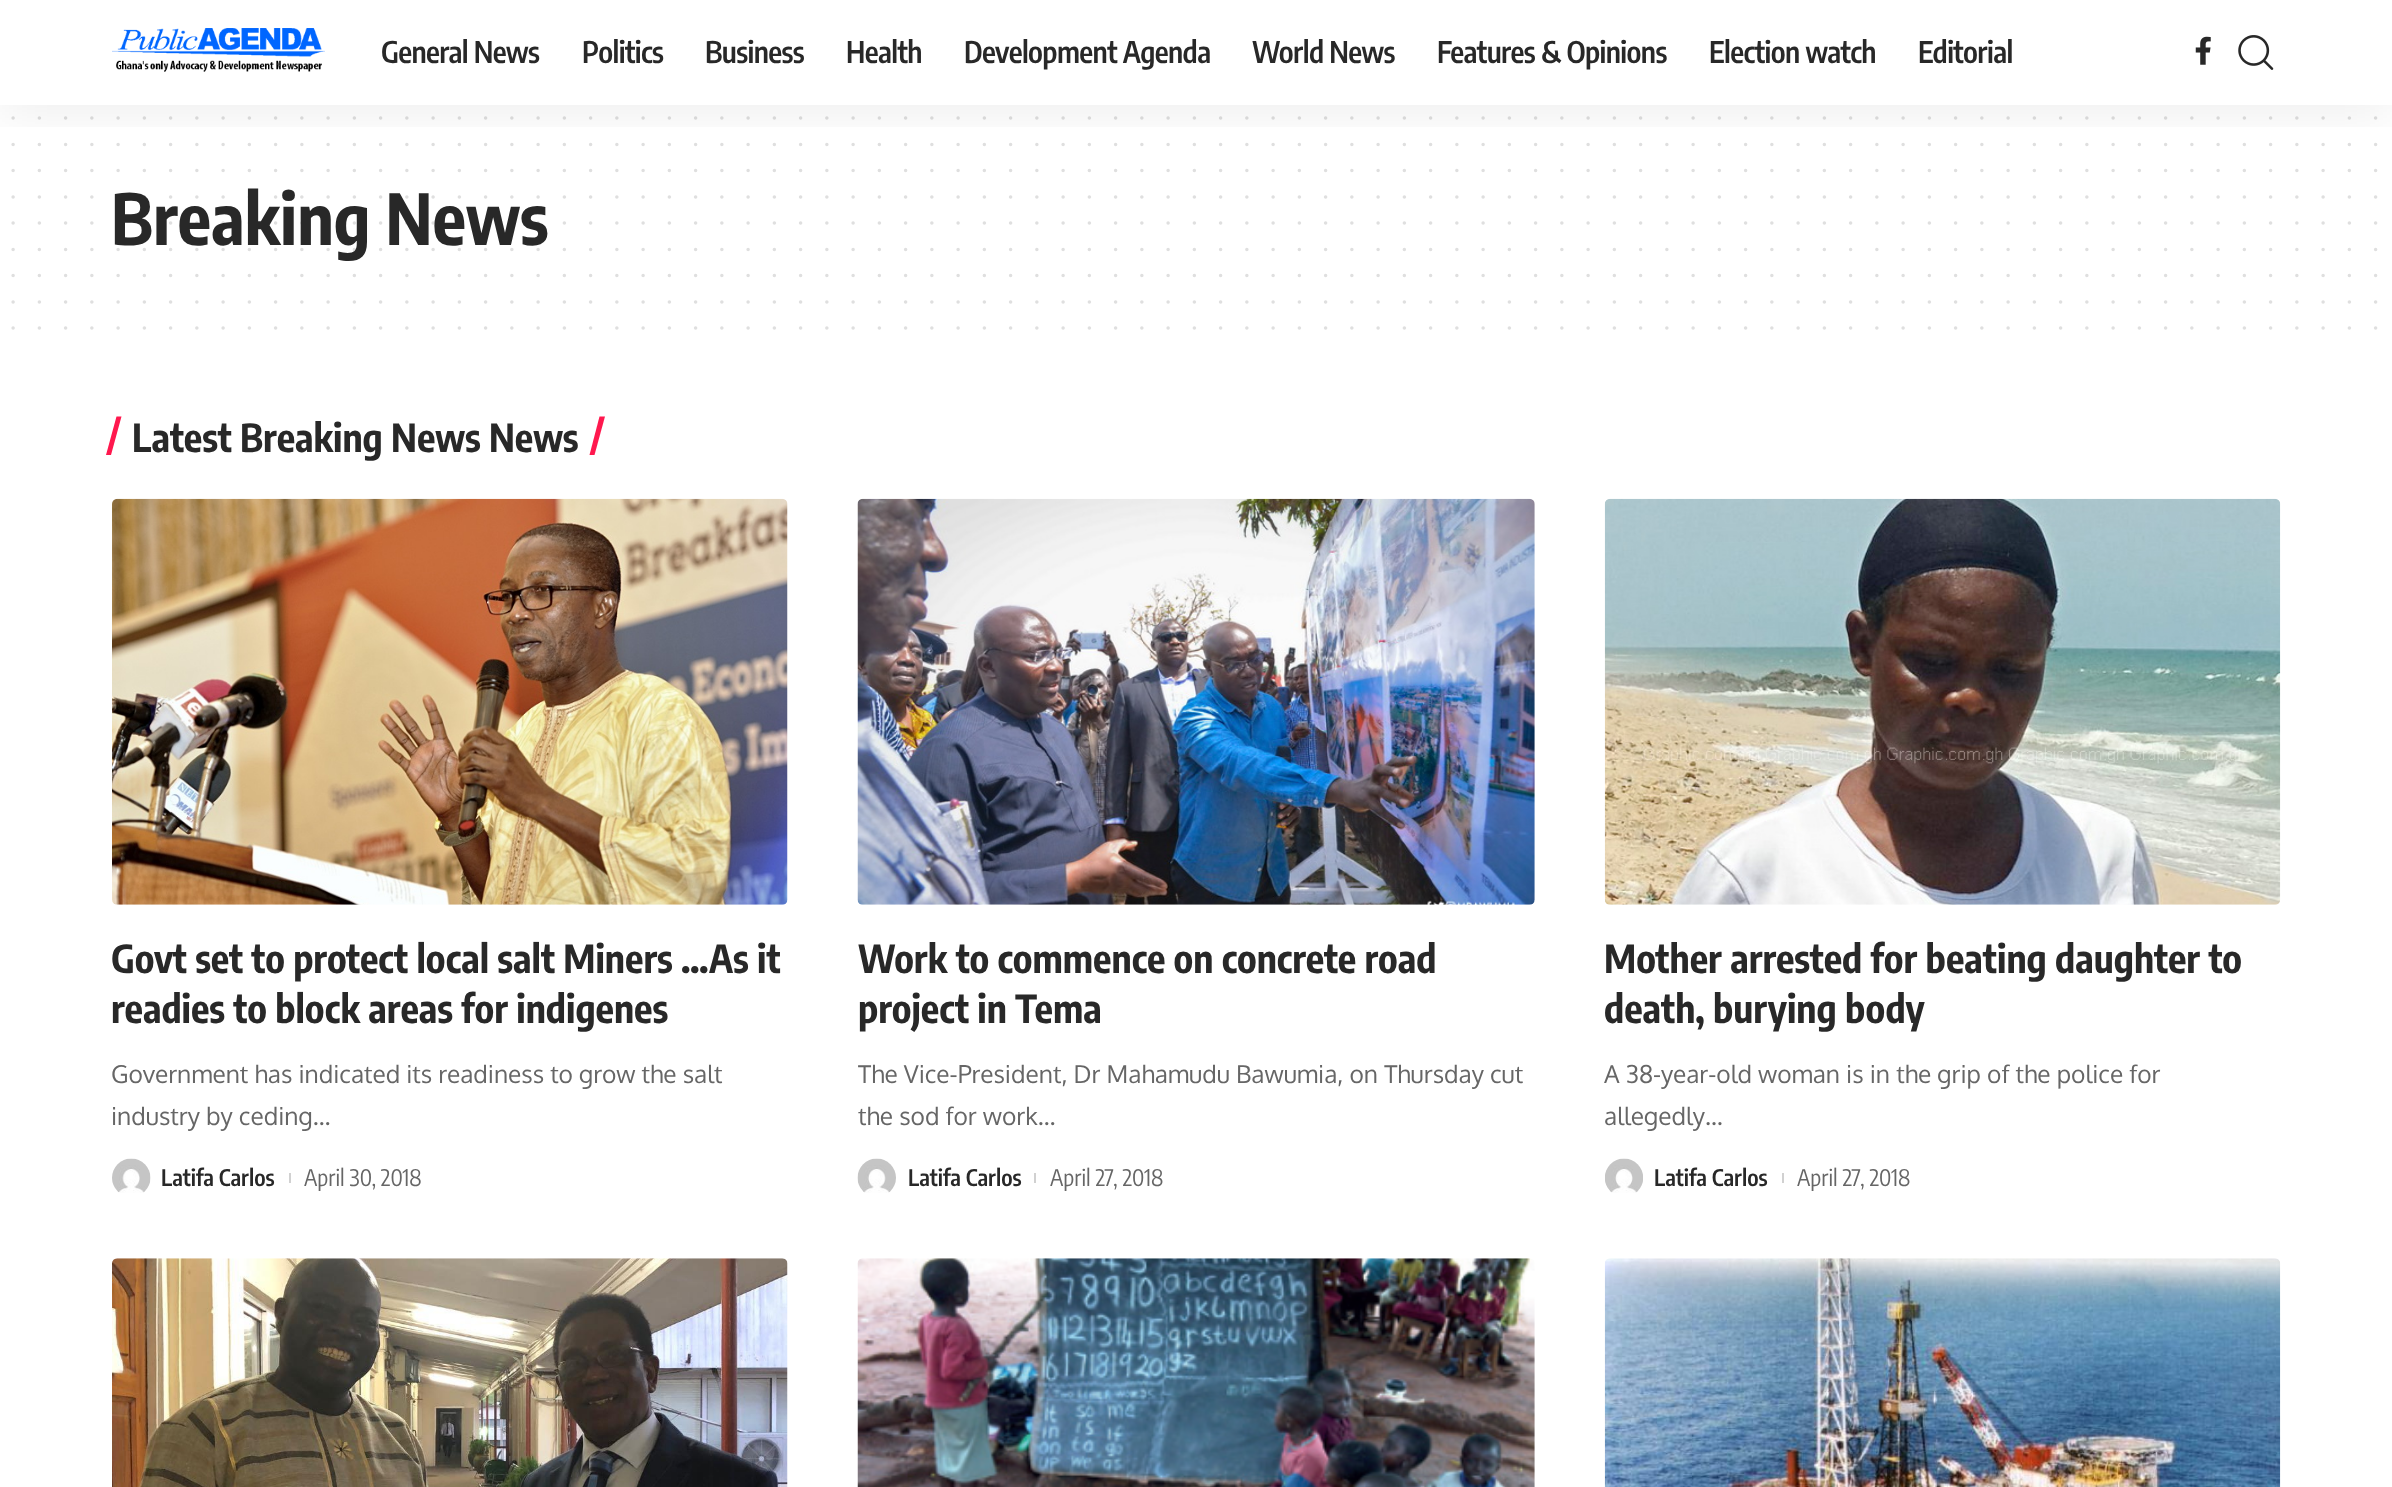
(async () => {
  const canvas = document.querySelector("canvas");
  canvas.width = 2392;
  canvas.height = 1487;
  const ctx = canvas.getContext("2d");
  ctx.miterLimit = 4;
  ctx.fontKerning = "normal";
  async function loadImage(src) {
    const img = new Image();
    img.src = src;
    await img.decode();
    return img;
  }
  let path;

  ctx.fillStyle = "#ffffff";
  ctx.fillRect(0, 0, 2392, 1487);
  path = new Path2D("M13.1 118.1H2376");
  ctx.strokeStyle = "#dfdfdf";
  ctx.lineWidth = 3.5;
  ctx.lineCap = "round";
  ctx.setLineDash([0, 26.25]);
  ctx.stroke(path);
  path = new Path2D("M13.1 144.4H2376");
  ctx.stroke(path);
  path = new Path2D("M13.1 170.6H2376");
  ctx.stroke(path);
  ctx.save();
  ctx.beginPath();
  ctx.rect(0, 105, 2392, 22);
  ctx.clip();
  ctx.fillStyle = "rgba(0, 0, 0, 0.07)";
  ctx.filter = "blur(26px)";
  ctx.beginPath();
  ctx.rect(0, 7, 2392, 105);
  ctx.fill();
  ctx.filter = "none";
  ctx.restore();
  ctx.drawImage(await loadImage("img/1.png"), 112, 28, 213, 44);
  ctx.drawImage(await loadImage("img/2.png"), 2195, 36, 16, 29);
  ctx.drawImage(await loadImage("img/3.png"), 2238, 35, 36, 35);
  path = new Path2D("M13.1 196.9H2376");
  ctx.stroke(path);
  path = new Path2D("M13.1 223.1H2376");
  ctx.stroke(path);
  path = new Path2D("M13.1 249.4H2376");
  ctx.stroke(path);
  path = new Path2D("M13.1 275.6H2376");
  ctx.stroke(path);
  path = new Path2D("M13.1 301.9H2376");
  ctx.stroke(path);
  path = new Path2D("M13.1 328.1H2376");
  ctx.stroke(path);
  ctx.fillStyle = "#ff184e";
  path = new Path2D("M599.5 416.5H605L594.5 455H589.5Z");
  ctx.fill(path);
  path = new Path2D("M116.5 416.5H121.5L111 455H106Z");
  ctx.fill(path);
  ctx.drawImage(await loadImage("img/4.png"), 112, 498, 676, 407);
  ctx.drawImage(await loadImage("img/5.png"), 112, 1158, 39, 35);
  ctx.fillStyle = "#d1d1d1";
  ctx.fillRect(289, 1173, 2, 10);
  ctx.drawImage(await loadImage("img/6.png"), 857, 498, 678, 407);
  ctx.drawImage(await loadImage("img/7.png"), 857, 1158, 39, 35);
  ctx.fillRect(1034, 1173, 2, 10);
  ctx.drawImage(await loadImage("img/8.png"), 1604, 498, 677, 407);
  ctx.drawImage(await loadImage("img/9.png"), 1605, 1158, 38, 35);
  ctx.fillRect(1782, 1173, 2, 10);
  ctx.drawImage(await loadImage("img/10.png"), 112, 1258, 676, 229);
  ctx.drawImage(await loadImage("img/11.png"), 857, 1258, 678, 229);
  ctx.drawImage(await loadImage("img/12.png"), 1604, 1258, 677, 229);
  ctx.letterSpacing = "-0.6px";
  ctx.font = "600 29.75px Encode Sans Condensed";
  ctx.fillStyle = "#282828";
  for (const [text, x, y] of [
    ["General News", 381, 63],
    ["Politics", 582, 63],
    ["Business", 705, 63],
    ["Health", 846, 63],
    ["Development Agenda", 964, 63],
    ["World News", 1252, 63],
    ["Features & Opinions", 1437, 63],
    ["Election watch", 1709, 63],
    ["Editorial", 1918, 63],
  ]) {
    ctx.fillText(text, x, y);
  }
  ctx.letterSpacing = "0px";
  ctx.font = "bold 70px Encode Sans Condensed";
  ctx.fillText("Breaking News", 111, 245);
  ctx.font = "bold 38.5px Encode Sans Condensed";
  for (const [text, x, y] of [
    ["Latest Breaking News News", 132, 452],
    ["Govt set to protect local salt Miners …As it", 111, 973],
    ["readies to block areas for indigenes", 111, 1023],
  ]) {
    ctx.fillText(text, x, y);
  }
  ctx.font = "24.5px Oxygen";
  ctx.fillStyle = "#666666";
  ctx.fillText("Government has indicated its readiness to grow the salt", 111, 1083);
  ctx.fillText("industry by ceding…", 111, 1125);
  ctx.font = "600 22.75px Encode Sans Condensed";
  ctx.fillStyle = "#282828";
  ctx.fillText("Latifa Carlos", 161, 1186);
  ctx.font = "22.75px Encode Sans Condensed";
  ctx.fillStyle = "#666666";
  ctx.fillText("April 30, 2018", 304, 1186);
  ctx.font = "bold 38.5px Encode Sans Condensed";
  ctx.fillStyle = "#282828";
  ctx.fillText("Work to commence on concrete road", 858, 973);
  ctx.fillText("project in Tema", 858, 1023);
  ctx.font = "24.5px Oxygen";
  ctx.fillStyle = "#666666";
  ctx.fillText("The Vice-President, Dr Mahamudu Bawumia, on Thursday cut", 858, 1083);
  ctx.fillText("the sod for work…", 858, 1125);
  ctx.font = "600 22.75px Encode Sans Condensed";
  ctx.fillStyle = "#282828";
  ctx.fillText("Latifa Carlos", 908, 1186);
  ctx.font = "22.75px Encode Sans Condensed";
  ctx.fillStyle = "#666666";
  ctx.fillText("April 27, 2018", 1050, 1186);
  ctx.font = "bold 38.5px Encode Sans Condensed";
  ctx.fillStyle = "#282828";
  ctx.fillText("Mother arrested for beating daughter to", 1604, 973);
  ctx.fillText("death, burying body", 1604, 1023);
  ctx.font = "24.5px Oxygen";
  ctx.fillStyle = "#666666";
  ctx.fillText("A 38-year-old woman is in the grip of the police for", 1604, 1083);
  ctx.fillText("allegedly…", 1604, 1125);
  ctx.font = "600 22.75px Encode Sans Condensed";
  ctx.fillStyle = "#282828";
  ctx.fillText("Latifa Carlos", 1654, 1186);
  ctx.font = "22.75px Encode Sans Condensed";
  ctx.fillStyle = "#666666";
  ctx.fillText("April 27, 2018", 1797, 1186);
})();
